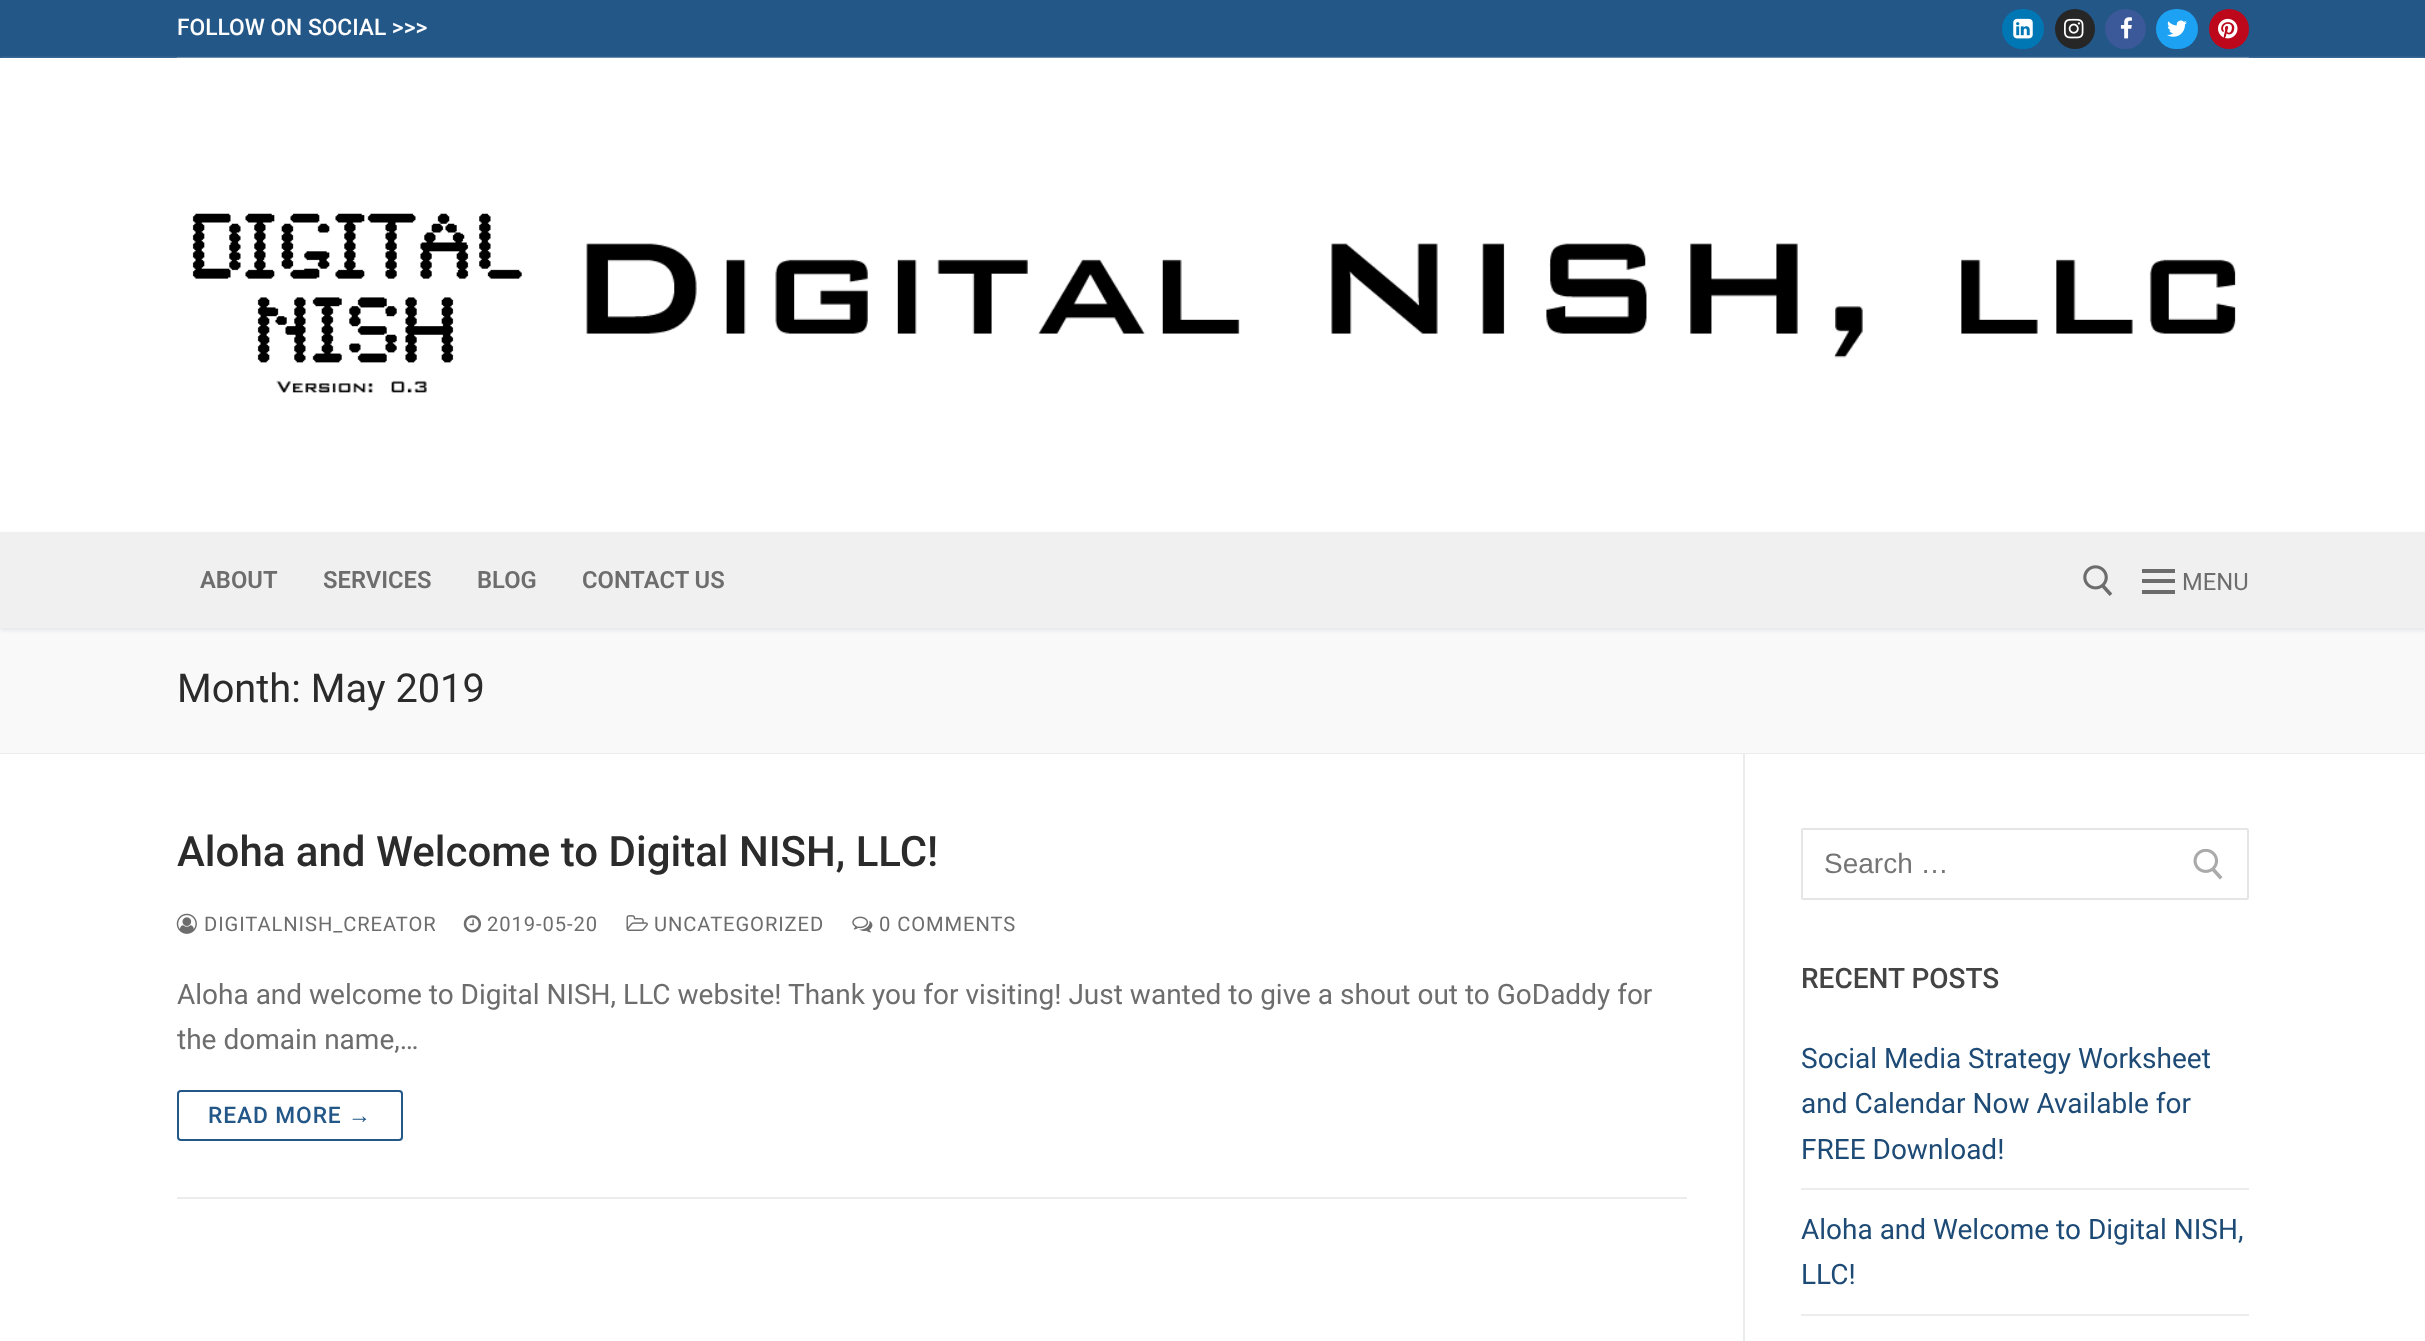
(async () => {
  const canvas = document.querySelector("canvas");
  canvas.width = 2425;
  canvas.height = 1341;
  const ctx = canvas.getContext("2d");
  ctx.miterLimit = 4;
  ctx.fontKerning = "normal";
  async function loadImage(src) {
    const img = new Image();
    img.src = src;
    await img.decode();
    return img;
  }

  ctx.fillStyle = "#ffffff";
  ctx.fillRect(0, 0, 2425, 1341);
  ctx.fillStyle = "#235787";
  ctx.fillRect(0, 0, 2425, 58);
  ctx.fillStyle = "#0077b5";
  ctx.beginPath();
  ctx.roundRect(2002, 9, 42, 40, 20);
  ctx.fill();
  ctx.drawImage(await loadImage("img/1.png"), 2013, 18, 20, 21);
  ctx.fillStyle = "#262626";
  ctx.beginPath();
  ctx.arc(2075, 29, 20, 0, Math.PI * 2);
  ctx.fill();
  ctx.drawImage(await loadImage("img/2.png"), 2064, 18, 20, 21);
  ctx.fillStyle = "#3b5998";
  ctx.beginPath();
  ctx.roundRect(2105, 9, 41, 40, 20);
  ctx.fill();
  ctx.drawImage(await loadImage("img/3.png"), 2120, 17, 12, 22);
  ctx.fillStyle = "#1da1f2";
  ctx.beginPath();
  ctx.roundRect(2156, 9, 42, 40, 20);
  ctx.fill();
  ctx.drawImage(await loadImage("img/4.png"), 2167, 20, 20, 17);
  ctx.fillStyle = "#bd081c";
  ctx.beginPath();
  ctx.arc(2229, 29, 20, 0, Math.PI * 2);
  ctx.fill();
  ctx.drawImage(await loadImage("img/5.png"), 2218, 18, 20, 21);
  ctx.save();
  ctx.beginPath();
  ctx.rect(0, 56, 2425, 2);
  ctx.clip();
  ctx.fillStyle = "#e1e5ea";
  ctx.filter = "blur(2px)";
  ctx.beginPath();
  ctx.rect(0, 60, 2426, 474);
  ctx.fill();
  ctx.filter = "none";
  ctx.restore();
  ctx.drawImage(await loadImage("img/6.png"), 176, 57, 2073, 336);
  ctx.fillStyle = "#f9f9f9";
  ctx.fillRect(0, 628, 2425, 125);
  ctx.fillStyle = "#e1e5ea";
  ctx.filter = "blur(2px)";
  ctx.beginPath();
  ctx.rect(0, 534, 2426, 96);
  ctx.fill();
  ctx.filter = "none";
  ctx.fillStyle = "#f0f0f0";
  ctx.fillRect(0, 532, 2425, 96);
  ctx.drawImage(await loadImage("img/7.png"), 2083, 565, 30, 31);
  for (const [x, y, w, h, color] of [
    [2142, 579, 33, 4, "#6c6c6c"],
    [2142, 569, 33, 4, "#6c6c6c"],
    [2142, 590, 33, 4, "#6c6c6c"],
    [0, 753, 2425, 1, "#eaecee"],
    [1743, 754, 2, 587, "#eaecee"],
    [177, 1197, 1510, 2, "#eaecee"],
  ]) {
    ctx.fillStyle = color;
    ctx.fillRect(x, y, w, h);
  }
  ctx.drawImage(await loadImage("img/8.png"), 176, 913, 21, 21);
  ctx.drawImage(await loadImage("img/9.png"), 463, 915, 18, 18);
  ctx.drawImage(await loadImage("img/10.png"), 626, 915, 22, 16);
  ctx.drawImage(await loadImage("img/11.png"), 852, 916, 21, 17);
  ctx.beginPath();
  ctx.roundRect(178, 1091, 224, 49, 3);
  ctx.strokeStyle = "#235787";
  ctx.lineWidth = 2;
  ctx.stroke();
  ctx.beginPath();
  ctx.roundRect(1802, 829, 446, 70, 1);
  ctx.strokeStyle = "#e5e5e5";
  ctx.stroke();
  ctx.drawImage(await loadImage("img/12.png"), 2193, 849, 30, 31);
  ctx.fillRect(1801, 1188, 448, 2);
  ctx.fillRect(1801, 1314, 448, 2);
  ctx.font = "500 22.75px Roboto";
  ctx.fillStyle = "#fdfdfe";
  ctx.fillText("FOLLOW ON SOCIAL >>>", 177, 35);
  ctx.font = "600 23.75px Roboto";
  ctx.fillStyle = "#6d6d6d";
  for (const [text, x, y] of [
    ["ABOUT", 200, 588],
    ["SERVICES", 323, 588],
    ["BLOG", 477, 588],
    ["CONTACT US", 582, 588],
  ]) {
    ctx.fillText(text, x, y);
  }
  ctx.font = "23.75px Roboto";
  ctx.fillText("MENU", 2182, 590);
  ctx.font = "39.75px Roboto";
  ctx.fillStyle = "#2b2b2b";
  ctx.fillText("Month: May 2019", 177, 702);
  ctx.font = "500 42px Roboto";
  ctx.fillText("Aloha and Welcome to Digital NISH, LLC!", 177, 866);
  ctx.letterSpacing = "0.9px";
  ctx.font = "20.2px Roboto";
  ctx.fillStyle = "#6d6d6d";
  for (const [text, x, y] of [
    ["DIGITALNISH_CREATOR", 204, 931],
    ["2019-05-20", 487, 931],
    ["UNCATEGORIZED", 654, 931],
    ["0 COMMENTS", 879, 931],
  ]) {
    ctx.fillText(text, x, y);
  }
  ctx.letterSpacing = "0px";
  ctx.font = "28px Roboto";
  ctx.fillText("Aloha and welcome to Digital NISH, LLC website! Thank you for visiting! Just wanted to give a shout out to GoDaddy for", 177, 1004);
  ctx.fillText("the domain name,…", 177, 1049);
  ctx.letterSpacing = "0.9px";
  ctx.font = "500 22.75px Roboto";
  ctx.fillStyle = "#235787";
  ctx.fillText("READ MORE", 208, 1123);
  ctx.font = "22.75px Liberation Sans";
  ctx.fillText("→", 348, 1123);
  ctx.letterSpacing = "0px";
  ctx.font = "28px Liberation Sans";
  ctx.fillStyle = "#757575";
  ctx.fillText("Search …", 1824, 873);
  ctx.font = "500 28px Roboto";
  ctx.fillStyle = "#444444";
  ctx.fillText("RECENT POSTS", 1801, 988);
  ctx.font = "28px Roboto";
  ctx.fillStyle = "#1e4b75";
  for (const [text, x, y] of [
    ["Social Media Strategy Worksheet", 1801, 1068],
    ["and Calendar Now Available for", 1801, 1113],
    ["FREE Download!", 1801, 1159],
    ["Aloha and Welcome to Digital NISH,", 1801, 1239],
    ["LLC!", 1801, 1284],
  ]) {
    ctx.fillText(text, x, y);
  }
})();
